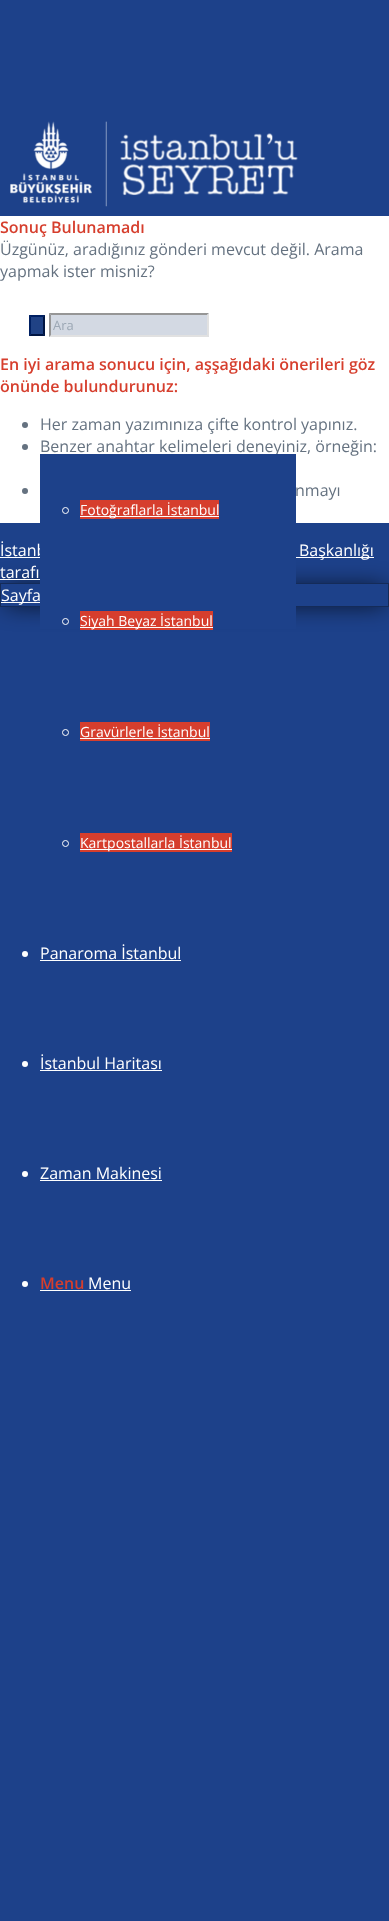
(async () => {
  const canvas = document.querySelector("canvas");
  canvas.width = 389;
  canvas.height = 1921;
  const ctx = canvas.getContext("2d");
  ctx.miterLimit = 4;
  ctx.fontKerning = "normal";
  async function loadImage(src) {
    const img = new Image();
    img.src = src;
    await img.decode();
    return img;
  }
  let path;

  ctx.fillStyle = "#1d418a";
  ctx.fillRect(0, 0, 389, 1921);
  ctx.fillStyle = "#ffffff";
  ctx.fillRect(0, 216, 389, 307);
  ctx.fillStyle = "#204285";
  ctx.fillRect(29, 315, 16, 21);
  ctx.fillStyle = "#002063";
  path = new Path2D("M29 315H45L43 317H31Z");
  ctx.fill(path);
  ctx.fillStyle = "#001542";
  path = new Path2D("M45 315V336L43 334V317Z");
  ctx.fill(path);
  path = new Path2D("M45 336H29L31 334H43Z");
  ctx.fill(path);
  ctx.fillStyle = "#002063";
  path = new Path2D("M29 336V315L31 317V334Z");
  ctx.fill(path);
  ctx.fillStyle = "#d3d9e3";
  ctx.fillRect(49, 313, 160, 24);
  ctx.fillStyle = "#969696";
  path = new Path2D("M49 313H209L207 315H51Z");
  ctx.fill(path);
  ctx.fillStyle = "#e1e1e1";
  path = new Path2D("M209 313V337L207 335V315Z");
  ctx.fill(path);
  path = new Path2D("M209 337H49L51 335H207Z");
  ctx.fill(path);
  ctx.fillStyle = "#969696";
  path = new Path2D("M49 337V313L51 315V335Z");
  ctx.fill(path);
  ctx.fillStyle = "#657280";
  ctx.beginPath();
  ctx.arc(25, 425, 3, 0, Math.PI * 2);
  ctx.fill();
  ctx.beginPath();
  ctx.arc(25, 447, 3, 0, Math.PI * 2);
  ctx.fill();
  ctx.beginPath();
  ctx.arc(25, 491, 3, 0, Math.PI * 2);
  ctx.fill();
  ctx.save();
  path = new Path2D("M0 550H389V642H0ZM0 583H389V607H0Z");
  ctx.clip(path, "evenodd");
  ctx.fillStyle = "#000000";
  ctx.filter = "blur(12.5px)";
  ctx.beginPath();
  ctx.rect(6, 589, 379, 14);
  ctx.fill();
  ctx.filter = "none";
  ctx.restore();
  for (const [x, y, w, h, color] of [
    [0, 557, 40, 1, "#ffffff"],
    [296, 557, 78, 1, "#ffffff"],
    [0, 579, 40, 1, "#ffffff"],
  ]) {
    ctx.fillStyle = color;
    ctx.fillRect(x, y, w, h);
  }
  ctx.drawImage(await loadImage("img/1.png"), 10, 121, 288, 86);
  ctx.beginPath();
  ctx.arc(65.5, 732.5, 3, 0, Math.PI * 2);
  ctx.strokeStyle = "#ffffff";
  ctx.stroke();
  ctx.fillStyle = "#d63e2d";
  ctx.fillRect(80, 722, 130, 19);
  ctx.fillStyle = "#ffffff";
  ctx.fillRect(80, 738, 130, 1);
  ctx.beginPath();
  ctx.arc(65.5, 843.5, 3, 0, Math.PI * 2);
  ctx.stroke();
  ctx.fillStyle = "#d63e2d";
  ctx.fillRect(80, 833, 152, 19);
  ctx.fillStyle = "#ffffff";
  ctx.fillRect(80, 849, 152, 1);
  ctx.beginPath();
  ctx.arc(25, 954, 3, 0, Math.PI * 2);
  ctx.fill();
  ctx.fillRect(40, 960, 141, 1);
  ctx.beginPath();
  ctx.arc(25, 1064, 3, 0, Math.PI * 2);
  ctx.fill();
  ctx.fillRect(40, 1070, 122, 1);
  ctx.beginPath();
  ctx.arc(25, 1174, 3, 0, Math.PI * 2);
  ctx.fill();
  ctx.fillRect(40, 1180, 122, 1);
  ctx.beginPath();
  ctx.arc(25, 1284, 3, 0, Math.PI * 2);
  ctx.fill();
  ctx.fillRect(40, 1290, 91, 1);
  ctx.strokeStyle = "#142b59";
  ctx.strokeRect(0.5, 583.5, 388, 23);
  ctx.fillRect(1, 602, 39, 1);
  ctx.font = "600 16px Open Sans";
  ctx.fillStyle = "#d63e2d";
  ctx.fillText("Sonuç Bulunamadı", 0, 233);
  ctx.font = "16px Open Sans";
  ctx.fillStyle = "#657280";
  ctx.fillText("Üzgünüz, aradığınız gönderi mevcut değil. Arama", 0, 255);
  ctx.fillText("yapmak ister misniz?", 0, 277);
  ctx.font = "13px Open Sans";
  ctx.fillStyle = "#9ca8b5";
  ctx.fillText("Ara", 53, 330);
  ctx.font = "600 16px Open Sans";
  ctx.fillStyle = "#d63e2d";
  ctx.fillText("En iyi arama sonucu için, aşşağıdaki önerileri göz", 0, 370);
  ctx.fillText("önünde bulundurunuz:", 0, 392);
  ctx.font = "16px Open Sans";
  ctx.fillStyle = "#657280";
  for (const [text, x, y] of [
    ["Her zaman yazımınıza çifte kontrol yapınız.", 40, 430],
    ["Benzer anahtar kelimeleri deneyiniz, örneğin:", 40, 452],
    ["nmayı", 295, 496],
  ]) {
    ctx.fillText(text, x, y);
  }
  ctx.fillStyle = "#ffffff";
  for (const [text, x, y] of [
    ["İstanb", 0, 556],
    ["Başkanlığı", 299, 556],
    ["tarafı", 0, 578],
  ]) {
    ctx.fillText(text, x, y);
  }
  ctx.fillStyle = "#1d418a";
  ctx.fillRect(40, 454, 256, 175);
  ctx.beginPath();
  ctx.arc(65.5, 510.5, 3, 0, Math.PI * 2);
  ctx.strokeStyle = "#ffffff";
  ctx.stroke();
  ctx.fillStyle = "#d63e2d";
  ctx.fillRect(80, 500, 139, 19);
  ctx.fillStyle = "#ffffff";
  ctx.fillRect(80, 516, 139, 1);
  ctx.font = "14px Open Sans";
  ctx.fillText("Fotoğraflarla İstanbul", 80, 515);
  ctx.beginPath();
  ctx.arc(65.5, 621.5, 3, 0, Math.PI * 2);
  ctx.stroke();
  ctx.fillStyle = "#d63e2d";
  ctx.fillRect(80, 611, 133, 19);
  ctx.fillStyle = "#ffffff";
  ctx.fillRect(80, 627, 133, 1);
  for (const [text, x, y] of [
    ["Siyah Beyaz İstanbul", 80, 626],
    ["Gravürlerle İstanbul", 80, 737],
    ["Kartpostallarla İstanbul", 80, 848],
  ]) {
    ctx.fillText(text, x, y);
  }
  ctx.font = "16px Open Sans";
  for (const [text, x, y] of [
    ["Panaroma İstanbul", 40, 959],
    ["İstanbul Haritası", 40, 1069],
    ["Zaman Makinesi", 40, 1179],
  ]) {
    ctx.fillText(text, x, y);
  }
  ctx.font = "600 16px Open Sans";
  ctx.fillStyle = "#d63e2d";
  ctx.fillText("Menu", 40, 1289);
  ctx.font = "16px Open Sans";
  ctx.fillStyle = "#ffffff";
  ctx.fillText("Menu", 88, 1289);
  ctx.fillText("Sayfa", 1, 601);
})();
